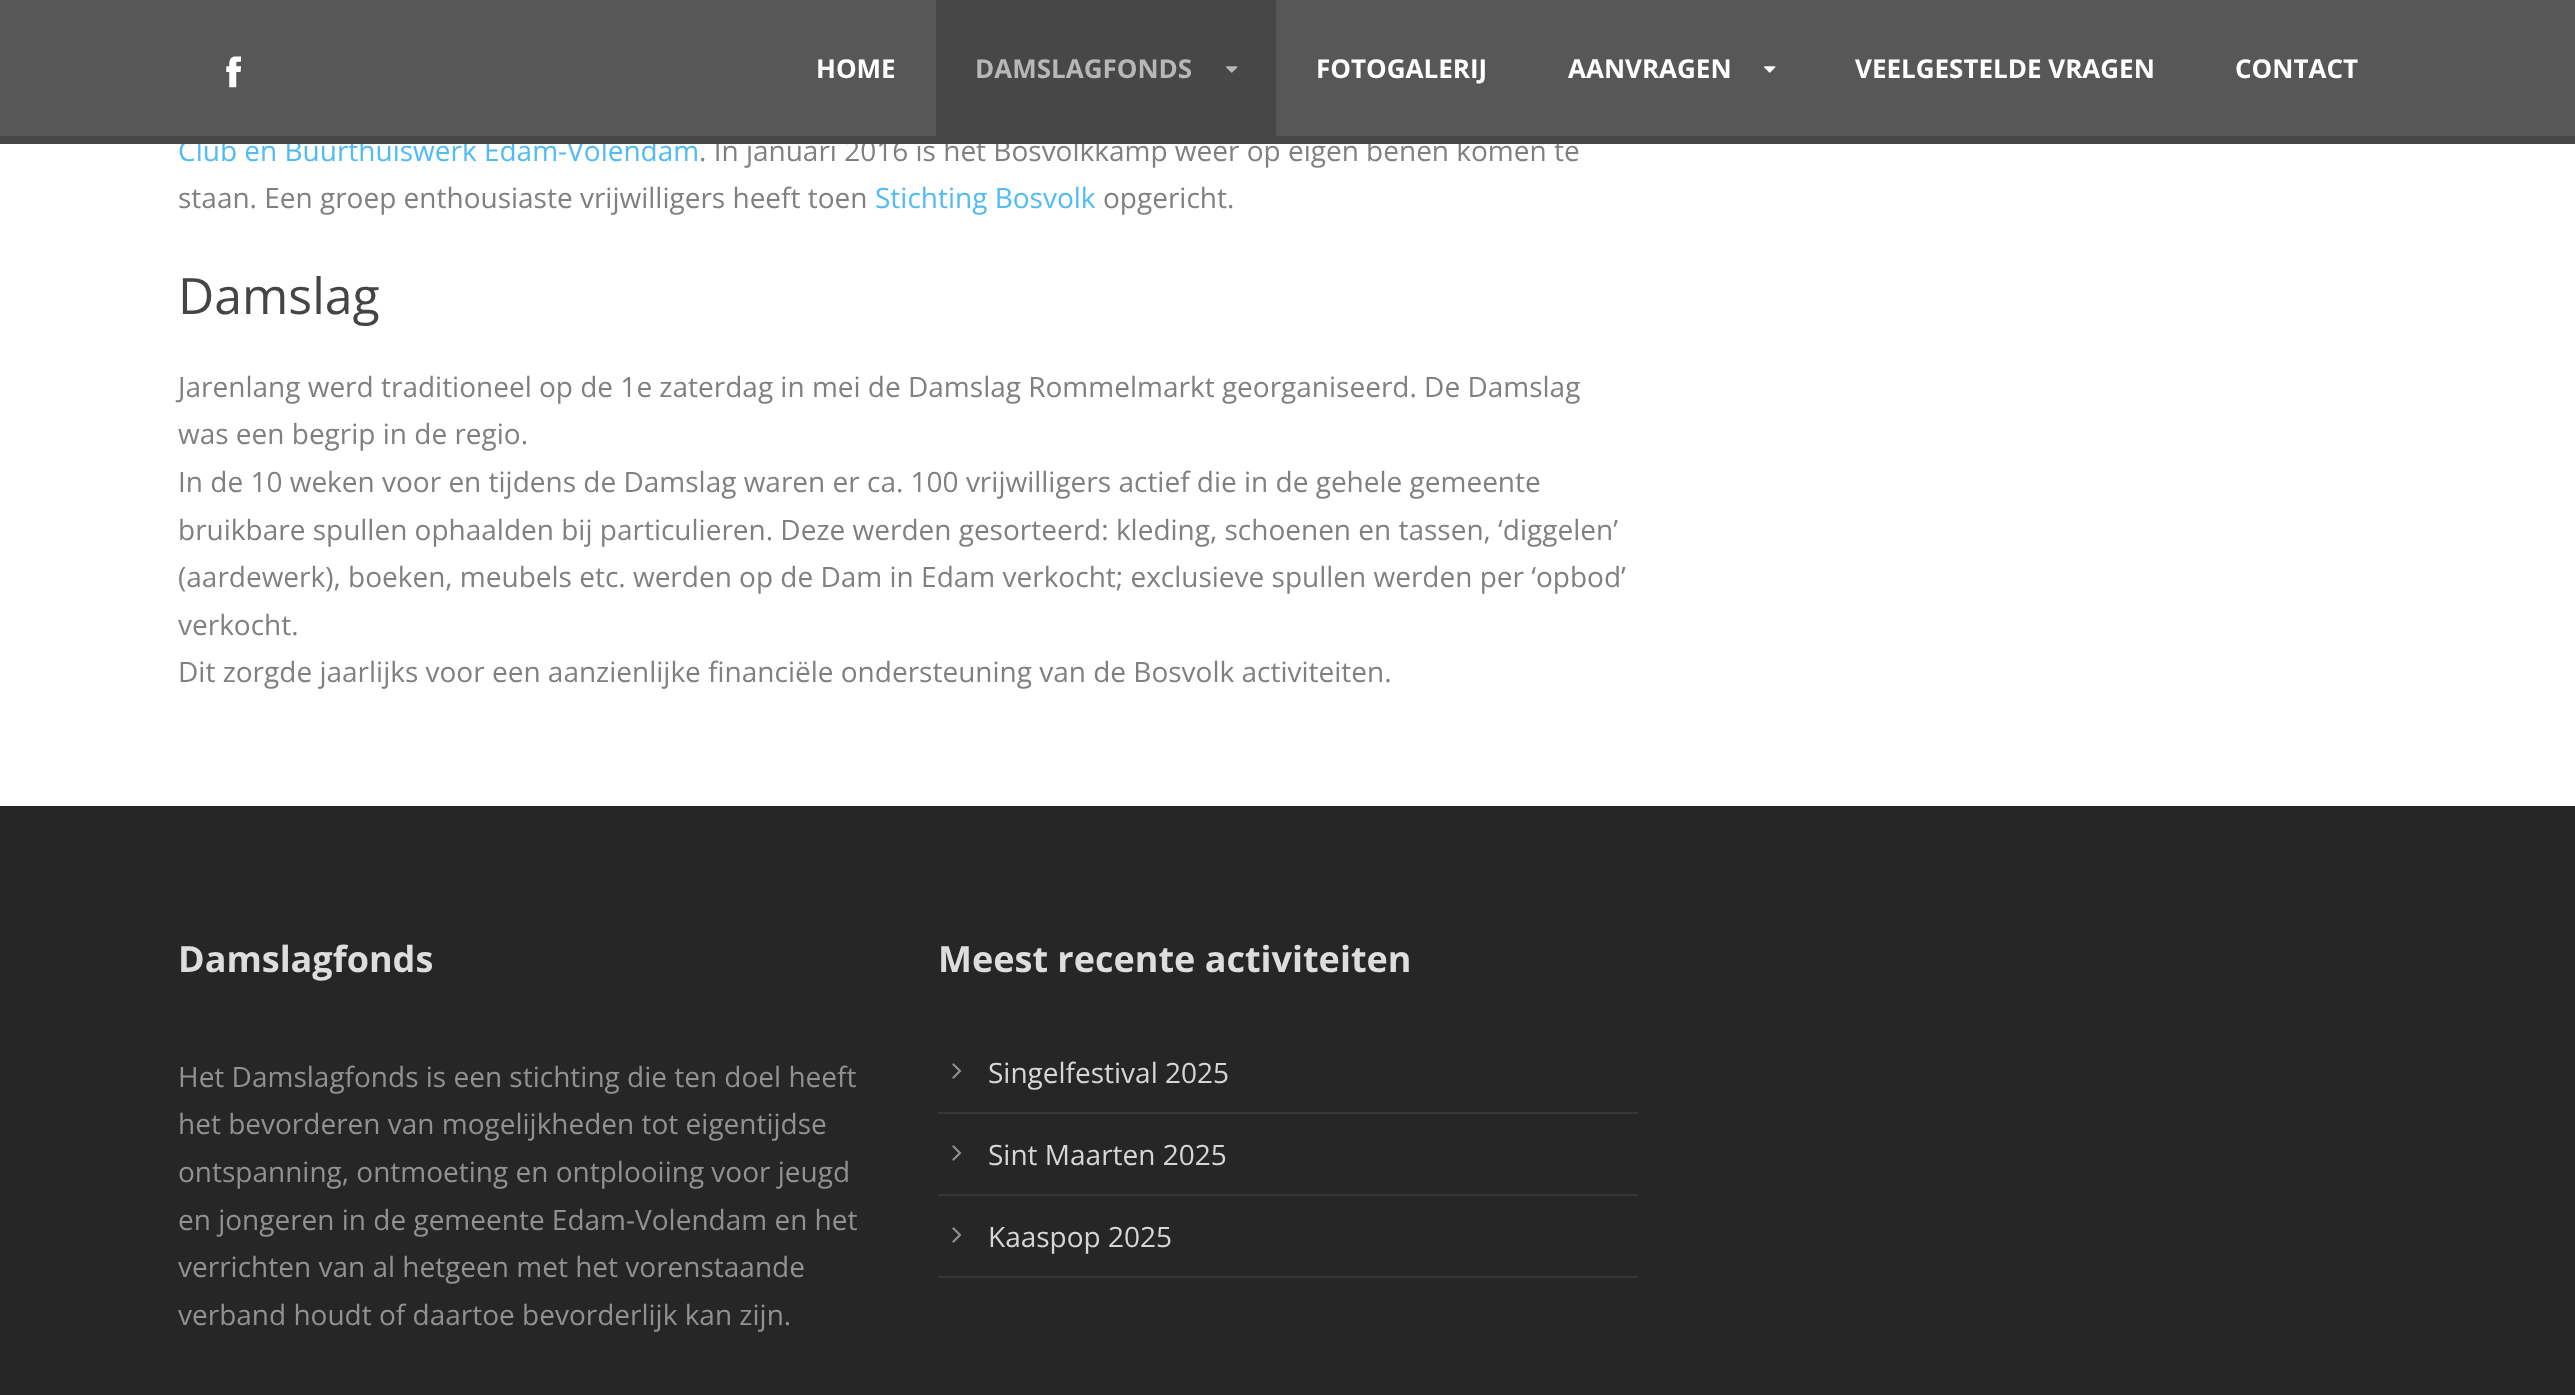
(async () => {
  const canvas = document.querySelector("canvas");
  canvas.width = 2575;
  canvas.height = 1395;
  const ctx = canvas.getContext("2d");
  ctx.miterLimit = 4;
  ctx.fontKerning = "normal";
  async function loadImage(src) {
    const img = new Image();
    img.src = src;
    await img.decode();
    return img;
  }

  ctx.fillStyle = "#ffffff";
  ctx.fillRect(0, 0, 2575, 1395);
  ctx.fillStyle = "#575757";
  ctx.fillRect(0, 0, 2575, 136);
  ctx.drawImage(await loadImage("img/1.png"), 226, 56, 15, 32);
  ctx.fillStyle = "#474747";
  ctx.fillRect(936, 0, 340, 136);
  ctx.drawImage(await loadImage("img/2.png"), 1226, 66, 12, 7);
  ctx.drawImage(await loadImage("img/3.png"), 1764, 66, 12, 7);
  ctx.fillStyle = "#262626";
  ctx.fillRect(0, 806, 2575, 589);
  ctx.fillStyle = "#363636";
  ctx.fillRect(938, 1112, 700, 2);
  ctx.drawImage(await loadImage("img/4.png"), 952, 1063, 10, 16);
  ctx.fillRect(938, 1194, 700, 2);
  ctx.drawImage(await loadImage("img/4.png"), 952, 1145, 10, 16);
  ctx.fillRect(938, 1276, 700, 2);
  ctx.drawImage(await loadImage("img/4.png"), 952, 1227, 10, 16);
  ctx.font = "bold 26px Open Sans";
  ctx.fillStyle = "#ffffff";
  ctx.fillText("HOME", 816, 78);
  ctx.fillStyle = "#b7b7b7";
  ctx.fillText("DAMSLAGFONDS", 975, 78);
  ctx.fillStyle = "#ffffff";
  for (const [text, x, y] of [
    ["FOTOGALERIJ", 1316, 78],
    ["AANVRAGEN", 1568, 78],
    ["VEELGESTELDE VRAGEN", 1855, 78],
    ["CONTACT", 2235, 78],
  ]) {
    ctx.fillText(text, x, y);
  }
  ctx.font = "28px Open Sans";
  ctx.fillStyle = "#50bbf4";
  ctx.fillText("Club en Buurthuiswerk Edam-Volendam", 178, 161);
  ctx.fillStyle = "#808080";
  ctx.fillText(". In januari 2016 is het Bosvolkkamp weer op eigen benen komen te", 699, 161);
  ctx.fillStyle = "#474747";
  ctx.fillRect(0, 136, 2575, 8);
  ctx.fillStyle = "#808080";
  ctx.fillText("staan. Een groep enthousiaste vrijwilligers heeft toen", 178, 208);
  ctx.fillStyle = "#50bbf4";
  ctx.fillText("Stichting Bosvolk", 875, 208);
  ctx.fillStyle = "#808080";
  ctx.fillText("opgericht.", 1103, 208);
  ctx.font = "50px Open Sans";
  ctx.fillStyle = "#454545";
  ctx.fillText("Damslag", 178, 314);
  ctx.font = "28px Open Sans";
  ctx.fillStyle = "#808080";
  for (const [text, x, y] of [
    ["Jarenlang werd traditioneel op de 1e zaterdag in mei de Damslag Rommelmarkt georganiseerd. De Damslag", 178, 397],
    ["was een begrip in de regio.", 178, 444],
    ["In de 10 weken voor en tijdens de Damslag waren er ca. 100 vrijwilligers actief die in de gehele gemeente", 178, 492],
    ["bruikbare spullen ophaalden bij particulieren. Deze werden gesorteerd: kleding, schoenen en tassen, ‘diggelen’", 178, 540],
    ["(aardewerk), boeken, meubels etc. werden op de Dam in Edam verkocht; exclusieve spullen werden per ‘opbod’", 178, 587],
    ["verkocht.", 178, 635],
    ["Dit zorgde jaarlijks voor een aanzienlijke financiële ondersteuning van de Bosvolk activiteiten.", 178, 682],
  ]) {
    ctx.fillText(text, x, y);
  }
  ctx.font = "bold 36px Open Sans";
  ctx.fillStyle = "#dddddd";
  ctx.fillText("Damslagfonds", 178, 972);
  ctx.font = "28px Open Sans";
  ctx.fillStyle = "#919191";
  for (const [text, x, y] of [
    ["Het Damslagfonds is een stichting die ten doel heeft", 178, 1087],
    ["het bevorderen van mogelijkheden tot eigentijdse", 178, 1134],
    ["ontspanning, ontmoeting en ontplooiing voor jeugd", 178, 1182],
    ["en jongeren in de gemeente Edam-Volendam en het", 178, 1230],
    ["verrichten van al hetgeen met het vorenstaande", 178, 1277],
    ["verband houdt of daartoe bevorderlijk kan zijn.", 178, 1325],
  ]) {
    ctx.fillText(text, x, y);
  }
  ctx.font = "bold 36px Open Sans";
  ctx.fillStyle = "#dddddd";
  ctx.fillText("Meest recente activiteiten", 938, 972);
  ctx.font = "28px Open Sans";
  ctx.fillStyle = "#d6d6d6";
  for (const [text, x, y] of [
    ["Singelfestival 2025", 988, 1083],
    ["Sint Maarten 2025", 988, 1165],
    ["Kaaspop 2025", 988, 1247],
  ]) {
    ctx.fillText(text, x, y);
  }
})();
